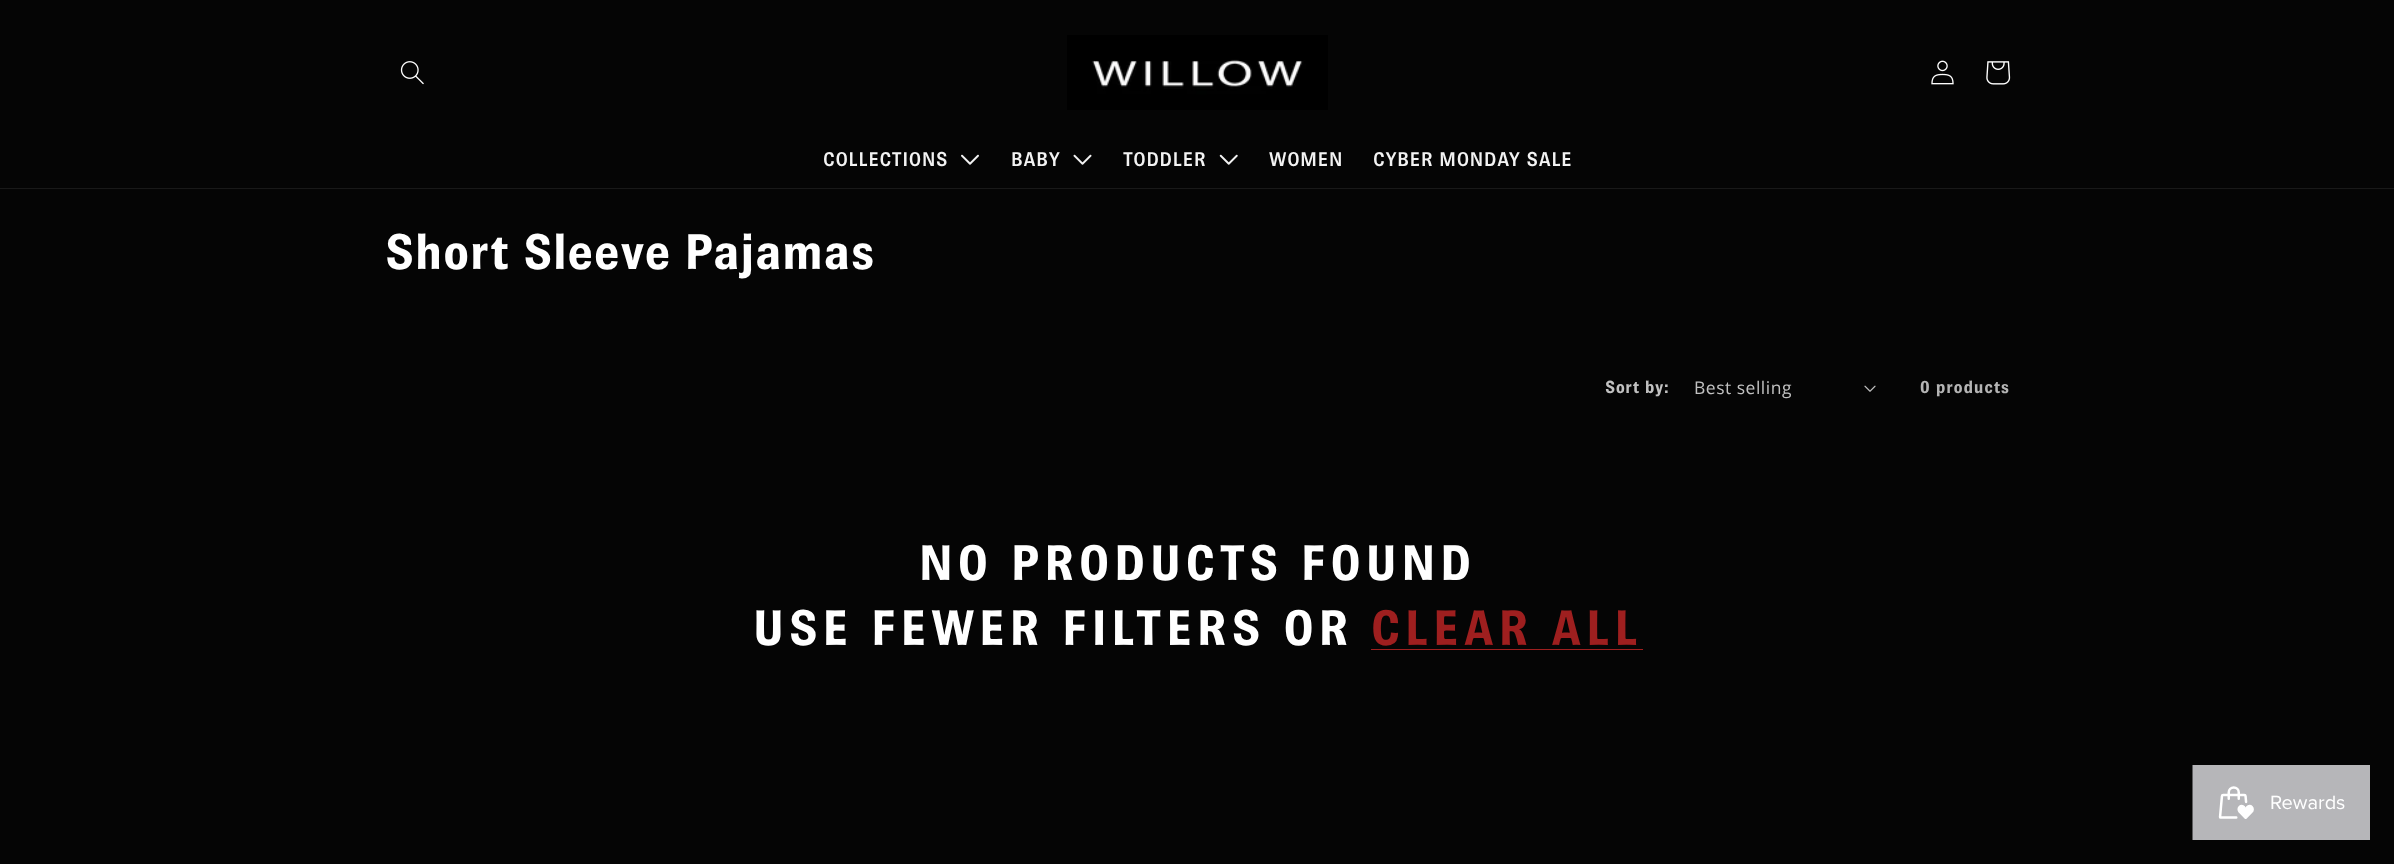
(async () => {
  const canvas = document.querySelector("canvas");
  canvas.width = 2394;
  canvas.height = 864;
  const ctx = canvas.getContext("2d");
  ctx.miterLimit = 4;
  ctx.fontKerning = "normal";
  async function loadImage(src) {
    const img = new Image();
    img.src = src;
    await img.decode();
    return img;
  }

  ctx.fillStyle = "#050505";
  ctx.fillRect(0, 0, 2394, 864);
  ctx.fillStyle = "#191919";
  ctx.fillRect(0, 188, 2394, 1);
  ctx.drawImage(await loadImage("img/1.png"), 400, 61, 24, 24);
  ctx.drawImage(await loadImage("img/2.png"), 1067, 35, 261, 75);
  ctx.drawImage(await loadImage("img/3.png"), 1931, 60, 23, 25);
  ctx.drawImage(await loadImage("img/4.png"), 1986, 61, 25, 24);
  ctx.drawImage(await loadImage("img/5.png"), 961, 154, 18, 11);
  ctx.drawImage(await loadImage("img/6.png"), 1073, 154, 19, 11);
  ctx.drawImage(await loadImage("img/7.png"), 1219, 154, 19, 11);
  ctx.drawImage(await loadImage("img/8.png"), 1864, 385, 12, 7);
  ctx.fillStyle = "#9e1f1f";
  ctx.fillRect(1371, 649, 272, 1);
  ctx.drawImage(await loadImage("img/9.png"), 2192, 765, 178, 75);
  ctx.letterSpacing = "0.75px";
  ctx.font = "500 20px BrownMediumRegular";
  ctx.fillStyle = "#f3f3f3";
  for (const [text, x, y] of [
    ["COLLECTIONS", 823, 166],
    ["BABY", 1011, 166],
    ["TODDLER", 1123, 166],
    ["WOMEN", 1269, 166],
    ["CYBER MONDAY SALE", 1373, 166],
  ]) {
    ctx.fillText(text, x, y);
  }
  ctx.font = "bold 50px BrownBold";
  ctx.fillStyle = "#ffffff";
  ctx.fillText("Short Sleeve Pajamas", 385, 269);
  ctx.letterSpacing = "0.5px";
  ctx.font = "bold 17.5px BrownBold";
  ctx.fillStyle = "#c1c1c1";
  ctx.fillText("Sort by:", 1605, 393);
  ctx.font = "17.5px Open Sans";
  ctx.fillText("Best selling", 1694, 394);
  ctx.letterSpacing = "0.75px";
  ctx.font = "bold 17.5px BrownBold";
  ctx.fillStyle = "#b4b4b4";
  ctx.fillText("0 products", 1920, 393);
  ctx.letterSpacing = "5px";
  ctx.font = "bold 50px BrownBold";
  ctx.fillStyle = "#ffffff";
  ctx.fillText("NO PRODUCTS FOUND", 919, 580);
  ctx.fillText("USE FEWER FILTERS OR", 753, 645);
  ctx.fillStyle = "#9e1f1f";
  ctx.fillText("CLEAR ALL", 1371, 645);
})();
